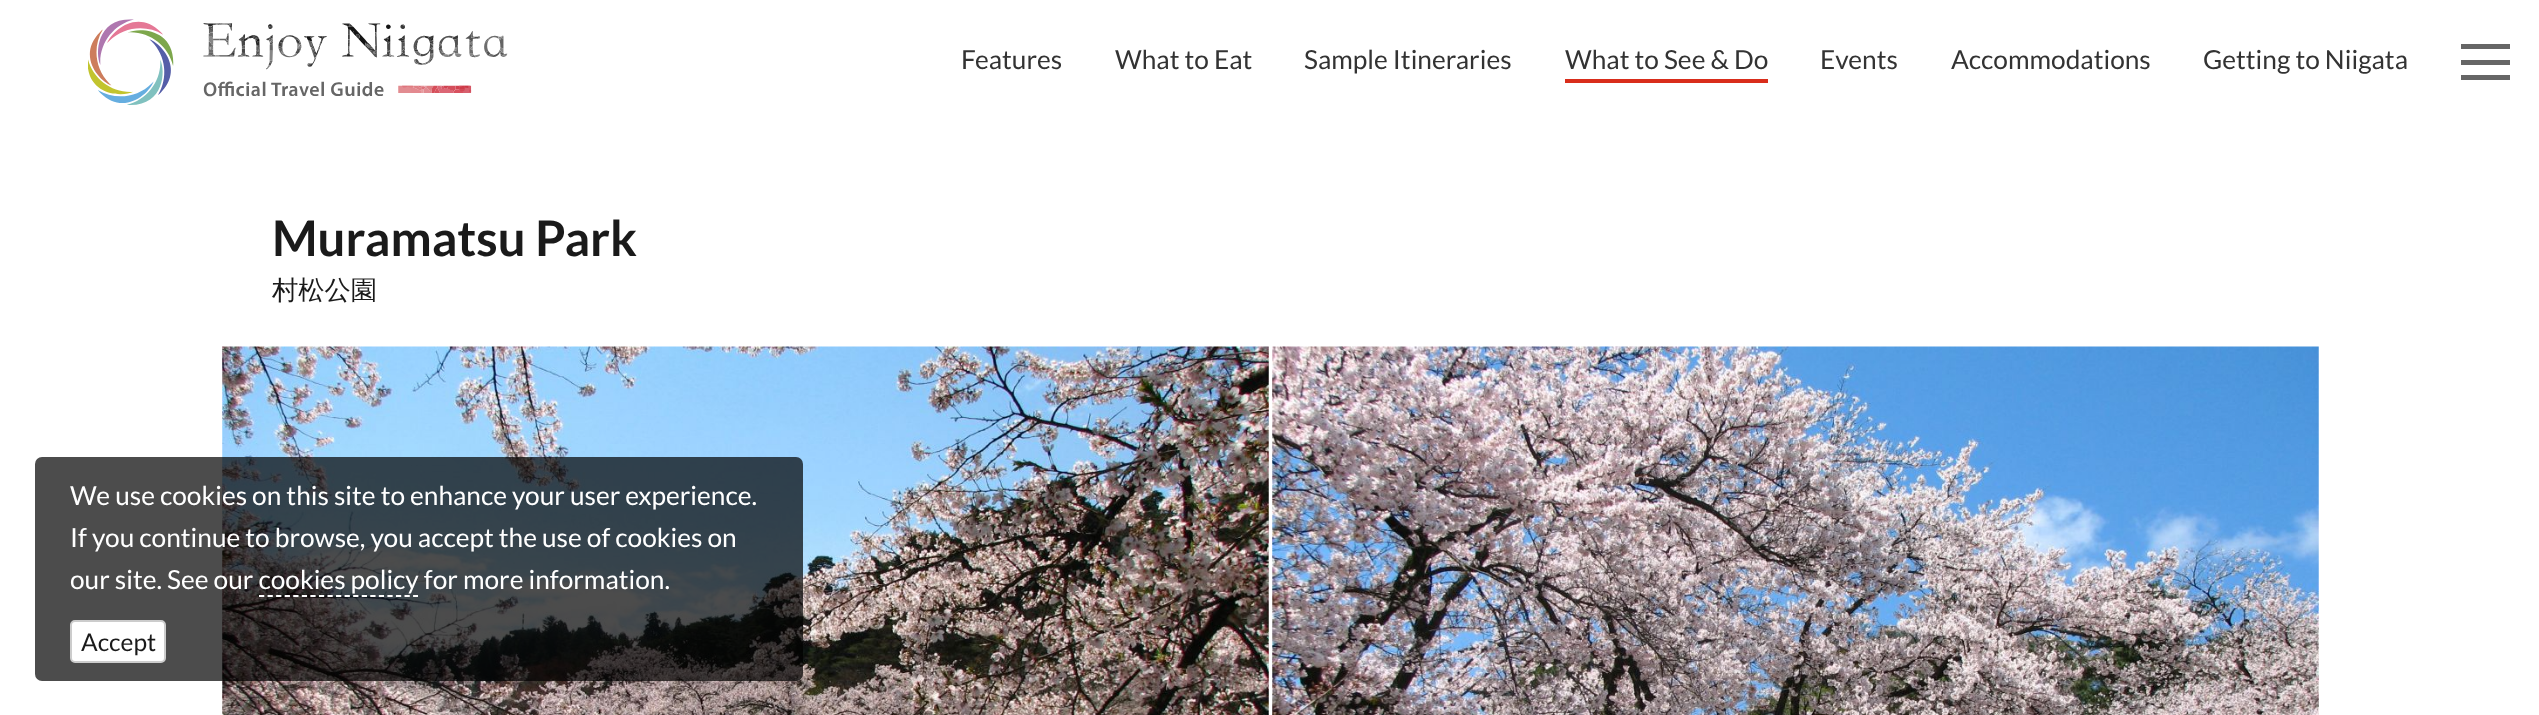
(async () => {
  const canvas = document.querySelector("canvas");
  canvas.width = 2539;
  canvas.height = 715;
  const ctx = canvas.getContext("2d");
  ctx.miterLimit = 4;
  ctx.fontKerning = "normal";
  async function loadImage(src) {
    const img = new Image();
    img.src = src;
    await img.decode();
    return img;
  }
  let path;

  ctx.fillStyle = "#ffffff";
  ctx.fillRect(0, 0, 2539, 715);
  ctx.drawImage(await loadImage("img/1.png"), 88, 19, 420, 86);
  for (const [x, y, w, h, color] of [
    [1565, 79, 203, 4, "#d92d1b"],
    [2461, 60, 49, 5, "#666666"],
    [2461, 44, 49, 5, "#666666"],
    [2461, 75, 49, 5, "#666666"],
  ]) {
    ctx.fillStyle = color;
    ctx.fillRect(x, y, w, h);
  }
  ctx.drawImage(await loadImage("img/2.png"), 222, 346, 1047, 369);
  ctx.drawImage(await loadImage("img/3.png"), 1272, 346, 1047, 369);
  ctx.fillStyle = "rgba(0, 0, 0, 0.7)";
  ctx.beginPath();
  ctx.roundRect(35, 457, 768, 224, 7);
  ctx.fill();
  path = new Path2D("M259 596H418");
  ctx.strokeStyle = "#ffffff";
  ctx.lineWidth = 1.8;
  ctx.setLineDash([5.25, 3.31]);
  ctx.stroke(path);
  ctx.fillStyle = "#ffffff";
  ctx.beginPath();
  ctx.roundRect(71, 621, 94, 41, 4);
  ctx.fill();
  ctx.strokeStyle = "#cccccc";
  ctx.lineWidth = 2;
  ctx.setLineDash([]);
  ctx.stroke();
  ctx.font = "26.25px Lato";
  ctx.fillStyle = "#333333";
  for (const [text, x, y] of [
    ["Features", 961, 69],
    ["What to Eat", 1115, 69],
    ["Sample Itineraries", 1304, 69],
    ["What to See & Do", 1565, 69],
    ["Events", 1820, 69],
    ["Accommodations", 1951, 69],
    ["Getting to Niigata", 2203, 69],
  ]) {
    ctx.fillText(text, x, y);
  }
  ctx.font = "bold 49px Lato";
  ctx.fillStyle = "#1a1a1a";
  ctx.fillText("Muramatsu Park", 272, 256);
  ctx.font = "500 26.25px WenQuanYi Zen Hei";
  ctx.fillText("村松公園", 272, 299);
  ctx.font = "26.25px Lato";
  ctx.fillStyle = "#ffffff";
  for (const [text, x, y] of [
    ["We use cookies on this site to enhance your user experience.", 70, 505],
    ["If you continue to browse, you accept the use of cookies on", 70, 547],
    ["our site. See our cookies policy for more information.", 70, 589],
  ]) {
    ctx.fillText(text, x, y);
  }
  ctx.font = "24.5px Lato";
  ctx.fillStyle = "#1a1a1a";
  ctx.fillText("Accept", 81, 651);
})();
